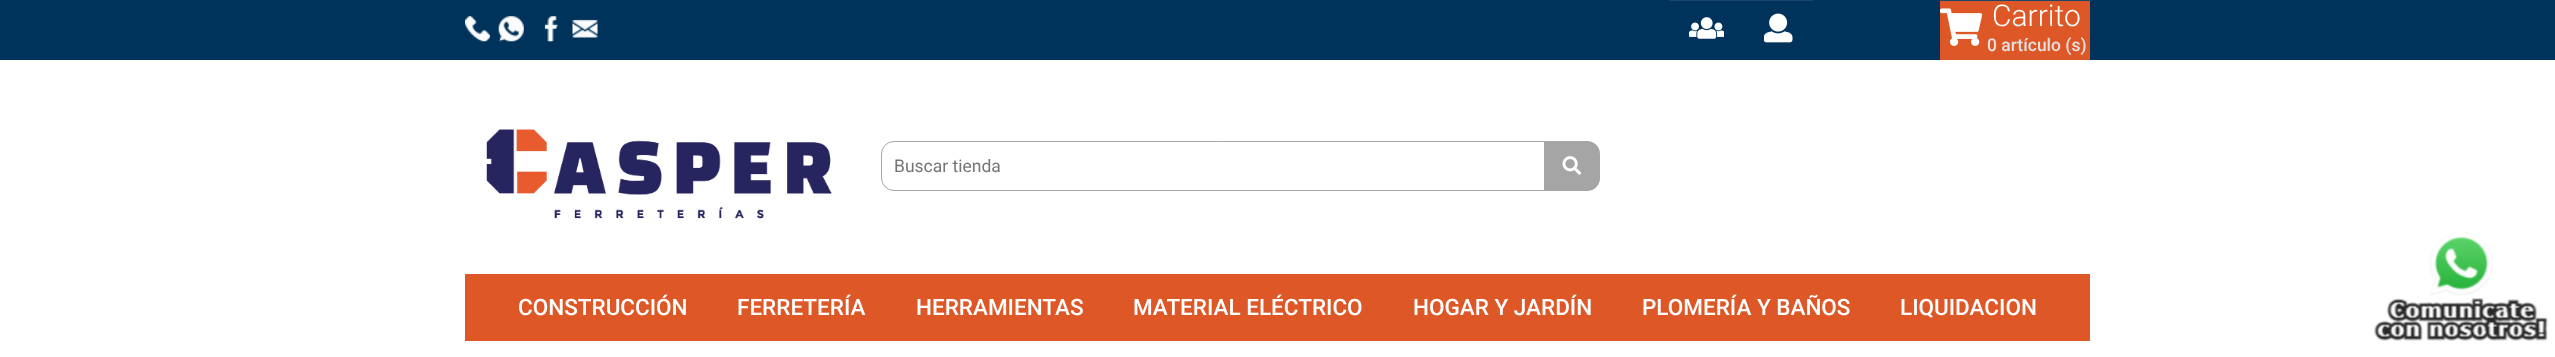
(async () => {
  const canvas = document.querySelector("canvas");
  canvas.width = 2555;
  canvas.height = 357;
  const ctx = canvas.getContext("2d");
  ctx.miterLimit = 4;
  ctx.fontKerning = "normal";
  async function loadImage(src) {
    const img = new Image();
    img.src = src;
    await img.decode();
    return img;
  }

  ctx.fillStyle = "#ffffff";
  ctx.fillRect(0, 0, 2555, 357);
  ctx.fillStyle = "#00335b";
  ctx.fillRect(0, 0, 2555, 60);
  ctx.drawImage(await loadImage("img/1.png"), 465, 16, 25, 26);
  ctx.drawImage(await loadImage("img/2.png"), 498, 16, 26, 26);
  ctx.drawImage(await loadImage("img/3.png"), 544, 16, 14, 26);
  ctx.drawImage(await loadImage("img/4.png"), 572, 19, 26, 19);
  ctx.fillStyle = "#1a476b";
  ctx.fillRect(1669, 0, 144, 1);
  ctx.drawImage(await loadImage("img/5.png"), 1689, 17, 35, 22);
  ctx.drawImage(await loadImage("img/6.png"), 1764, 13, 29, 30);
  ctx.fillRect(1940, 0, 150, 1);
  ctx.fillStyle = "#de5827";
  ctx.fillRect(1940, 1, 150, 59);
  ctx.drawImage(await loadImage("img/7.png"), 1940, 8, 43, 38);
  ctx.drawImage(await loadImage("img/8.png"), 486, 129, 346, 90);
  ctx.beginPath();
  ctx.roundRect(881.5, 141.5, 668, 49, [12.5, 0, 0, 12.5]);
  ctx.strokeStyle = "#a5a5a5";
  ctx.stroke();
  ctx.fillStyle = "#a5a5a5";
  ctx.beginPath();
  ctx.roundRect(1544, 141, 56, 50, [0, 13, 13, 0]);
  ctx.fill();
  ctx.drawImage(await loadImage("img/9.png"), 1562, 156, 20, 19);
  ctx.fillStyle = "#de5827";
  ctx.fillRect(465, 274, 1625, 67);
  ctx.drawImage(await loadImage("img/10.png"), 2374, 232, 174, 109);
  ctx.font = "300 30px Roboto";
  ctx.fillStyle = "#ffffff";
  ctx.fillText("Carrito", 1992, 26);
  ctx.font = "500 17.5px Roboto";
  ctx.fillStyle = "#e1e1e1";
  ctx.fillText("0 artículo (s)", 1987, 51);
  ctx.font = "17.5px Roboto";
  ctx.fillStyle = "#757575";
  ctx.fillText("Buscar tienda", 894, 172);
  ctx.font = "500 22.5px Roboto";
  ctx.fillStyle = "#ffffff";
  for (const [text, x, y] of [
    ["CONSTRUCCIÓN", 518, 315],
    ["FERRETERÍA", 737, 315],
    ["HERRAMIENTAS", 916, 315],
    ["MATERIAL ELÉCTRICO", 1133, 315],
    ["HOGAR Y JARDÍN", 1413, 315],
    ["PLOMERÍA Y BAÑOS", 1642, 315],
    ["LIQUIDACION", 1900, 315],
  ]) {
    ctx.fillText(text, x, y);
  }
})();
